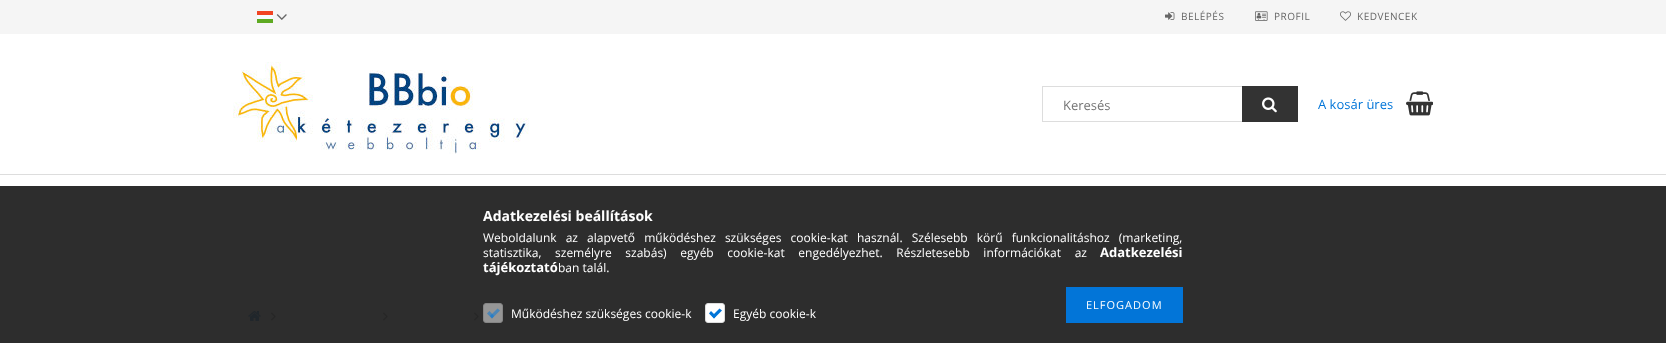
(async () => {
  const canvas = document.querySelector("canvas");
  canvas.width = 1666;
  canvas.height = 343;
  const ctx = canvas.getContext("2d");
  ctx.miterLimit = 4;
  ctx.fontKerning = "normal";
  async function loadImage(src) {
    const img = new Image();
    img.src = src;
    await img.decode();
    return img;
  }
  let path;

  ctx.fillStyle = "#ffffff";
  ctx.fillRect(0, 0, 1666, 343);
  ctx.fillStyle = "#2d2d2d";
  ctx.fillRect(0, 186, 1666, 157);
  ctx.fillStyle = "#f5f5f5";
  ctx.fillRect(0, 0, 1666, 34);
  ctx.drawImage(await loadImage("img/1.png"), 257, 11, 16, 12);
  ctx.drawImage(await loadImage("img/2.png"), 276, 14, 11, 6);
  ctx.drawImage(await loadImage("img/3.png"), 1165, 12, 10, 8);
  ctx.drawImage(await loadImage("img/4.png"), 1255, 11, 13, 10);
  ctx.drawImage(await loadImage("img/5.png"), 1340, 11, 11, 10);
  ctx.drawImage(await loadImage("img/6.png"), 233, 62, 296, 92);
  ctx.strokeStyle = "#dddddd";
  ctx.strokeRect(1042.5, 86.5, 255, 35);
  ctx.fillStyle = "#333333";
  ctx.fillRect(1242, 86, 56, 36);
  ctx.drawImage(await loadImage("img/7.png"), 1262, 97, 15, 16);
  ctx.drawImage(await loadImage("img/8.png"), 1406, 91, 27, 25);
  ctx.fillStyle = "#dddddd";
  ctx.fillRect(0, 174, 1666, 1);
  ctx.drawImage(await loadImage("img/9.png"), 248, 311, 13, 10);
  ctx.drawImage(await loadImage("img/10.png"), 271, 312, 5, 9);
  ctx.drawImage(await loadImage("img/10.png"), 383, 312, 5, 9);
  ctx.drawImage(await loadImage("img/10.png"), 474, 312, 5, 9);
  ctx.fillStyle = "#0275d8";
  ctx.fillRect(1066, 287, 117, 36);
  ctx.fillStyle = "rgba(255, 255, 255, 0.5)";
  ctx.beginPath();
  ctx.roundRect(483.5, 303.5, 19, 19, 2.5);
  ctx.fill();
  ctx.strokeStyle = "#858585";
  ctx.stroke();
  ctx.fillStyle = "rgba(2, 117, 216, 0.5)";
  path = new Path2D("M490 316L497.5 308.5L500 310.5L492 318.5Z");
  ctx.fill(path);
  path = new Path2D("M487 313.5L489.5 311L494 316L492 318.5Z");
  ctx.fill(path);
  ctx.fillStyle = "#ffffff";
  ctx.beginPath();
  ctx.roundRect(705.5, 303.5, 19, 19, 2.5);
  ctx.fill();
  ctx.strokeStyle = "#dddddd";
  ctx.stroke();
  ctx.fillStyle = "#0275d8";
  path = new Path2D("M712 316L719.5 308.5L722 310.5L714 318.5Z");
  ctx.fill(path);
  path = new Path2D("M709 313.5L711 311L716 316L714 318.5Z");
  ctx.fill(path);
  ctx.letterSpacing = "0.5px";
  ctx.font = "10px Open Sans";
  ctx.fillStyle = "#666666";
  for (const [text, x, y] of [
    ["BELÉPÉS", 1181, 20],
    ["PROFIL", 1274, 20],
    ["KEDVENCEK", 1357, 20],
  ]) {
    ctx.fillText(text, x, y);
  }
  ctx.letterSpacing = "0px";
  ctx.font = "13px Open Sans";
  ctx.fillStyle = "#757575";
  ctx.fillText("Keresés", 1063, 110);
  ctx.fillStyle = "#0275d8";
  ctx.fillText("A kosár üres", 1318, 109);
  ctx.font = "bold 14px Open Sans";
  ctx.fillStyle = "#ffffff";
  ctx.fillText("Adatkezelési beállítások", 483, 221);
  ctx.wordSpacing = "6px";
  ctx.font = "12px Open Sans";
  ctx.fillText("Weboldalunk az alapvető működéshez szükséges cookie-kat használ. Szélesebb körű funkcionalitáshoz (marketing,", 483, 242);
  ctx.wordSpacing = "10.5px";
  ctx.fillText("statisztika, személyre szabás) egyéb cookie-kat engedélyezhet. Részletesebb információkat az", 483, 257);
  ctx.wordSpacing = "0px";
  ctx.font = "bold 13px Open Sans";
  ctx.fillText("Adatkezelési", 1100, 257);
  ctx.fillText("tájékoztató", 483, 272);
  ctx.font = "12px Open Sans";
  ctx.fillText("ban talál.", 558, 272);
  ctx.letterSpacing = "1px";
  ctx.font = "11px Open Sans";
  ctx.fillText("ELFOGADOM", 1086, 309);
  ctx.letterSpacing = "0px";
  ctx.font = "12px Open Sans";
  ctx.fillText("Működéshez szükséges cookie-k", 511, 318);
  ctx.fillText("Egyéb cookie-k", 733, 318);
})();
